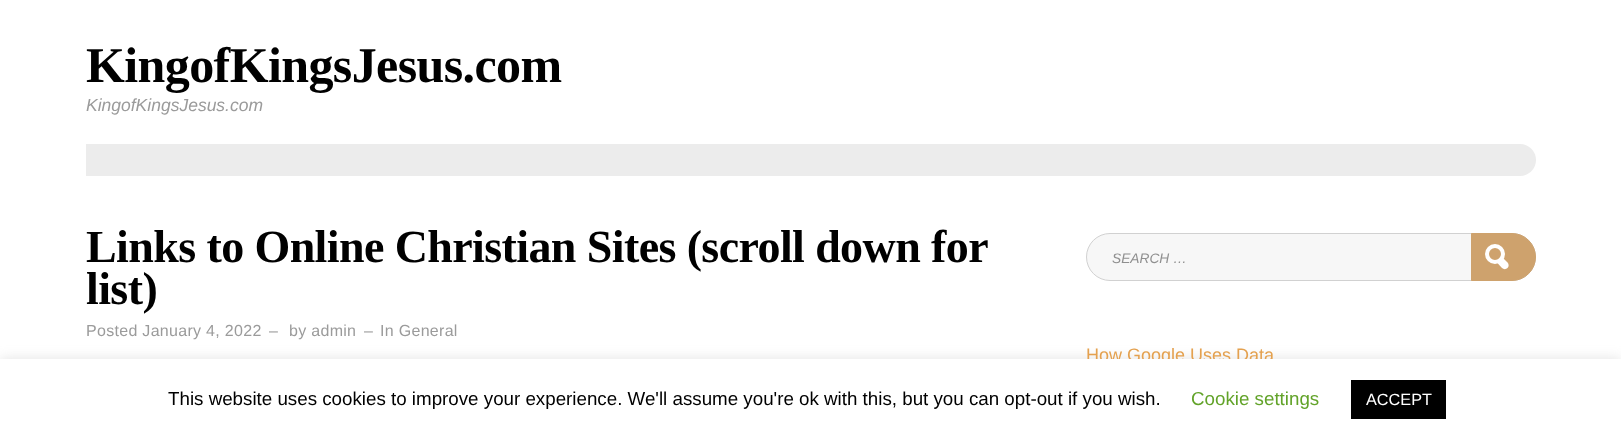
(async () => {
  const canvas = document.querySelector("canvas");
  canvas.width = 1621;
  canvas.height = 439;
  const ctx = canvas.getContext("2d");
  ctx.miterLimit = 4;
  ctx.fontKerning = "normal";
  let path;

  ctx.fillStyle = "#ffffff";
  ctx.fillRect(0, 0, 1621, 439);
  ctx.fillStyle = "#ececec";
  ctx.beginPath();
  ctx.roundRect(86, 144, 1450, 32, [0, 16, 16, 0]);
  ctx.fill();
  ctx.fillStyle = "#f7f7f7";
  ctx.beginPath();
  ctx.roundRect(1086.5, 233.5, 449, 47, 23.5);
  ctx.fill();
  ctx.strokeStyle = "#d1d1d1";
  ctx.stroke();
  ctx.fillStyle = "#cea26d";
  ctx.beginPath();
  ctx.roundRect(1471.5, 233.5, 64, 47, [0, 23.5, 23.5, 0]);
  ctx.fill();
  ctx.strokeStyle = "#cea26d";
  ctx.stroke();
  ctx.beginPath();
  ctx.arc(1495, 254, 8, 0, Math.PI * 2);
  ctx.strokeStyle = "#ffffff";
  ctx.lineWidth = 4;
  ctx.stroke();
  ctx.fillStyle = "#ffffff";
  path = new Path2D("M1501.5 256.5L1507.5 262.5C1509 264 1509 266.5 1507.5 268C1506 269.5 1503.5 269.5 1502 268L1496 261.5Z");
  ctx.fill(path);
  ctx.fillStyle = "rgba(172, 171, 171, 0.3)";
  ctx.filter = "blur(6px)";
  ctx.beginPath();
  ctx.rect(0, 358, 1621, 81);
  ctx.fill();
  ctx.filter = "none";
  ctx.letterSpacing = "-0.6px";
  ctx.font = "bold 50px Liberation Serif";
  ctx.fillStyle = "#000000";
  ctx.fillText("KingofKingsJesus.com", 86, 82);
  ctx.letterSpacing = "0px";
  ctx.font = "italic 17.5px Liberation Sans";
  ctx.fillStyle = "#9b9b9b";
  ctx.fillText("KingofKingsJesus.com", 86, 111);
  ctx.letterSpacing = "-0.6px";
  ctx.font = "bold 46px Liberation Serif";
  ctx.fillStyle = "#000000";
  ctx.fillText("Links to Online Christian Sites (scroll down for", 86, 262);
  ctx.fillText("list)", 86, 304);
  ctx.letterSpacing = "0.3px";
  ctx.font = "16px Liberation Sans";
  ctx.fillStyle = "#9b9b9b";
  for (const [text, x, y] of [
    ["Posted January 4, 2022", 86, 336],
    ["–", 269, 336],
    ["by admin", 289, 336],
    ["–", 364, 336],
    ["In General", 380, 336],
  ]) {
    ctx.fillText(text, x, y);
  }
  ctx.letterSpacing = "0px";
  ctx.font = "italic 13.75px Liberation Sans";
  ctx.fillStyle = "#8f8f8f";
  ctx.fillText("SEARCH …", 1112, 263);
  ctx.font = "18px Liberation Sans";
  ctx.fillStyle = "#e4a14f";
  ctx.fillText("How Google Uses Data", 1086, 361);
  ctx.fillStyle = "#ffffff";
  ctx.fillRect(0, 359, 1621, 80);
  ctx.font = "18.75px Liberation Sans";
  ctx.fillStyle = "#000000";
  ctx.fillText("This website uses cookies to improve your experience. We'll assume you're ok with this, but you can opt-out if you wish.", 168, 405);
  ctx.fillStyle = "#62a329";
  ctx.fillText("Cookie settings", 1191, 405);
  ctx.fillStyle = "#000000";
  ctx.fillRect(1351, 380, 95, 39);
  ctx.font = "16.25px Liberation Sans";
  ctx.fillStyle = "#ffffff";
  ctx.fillText("ACCEPT", 1366, 405);
})();
